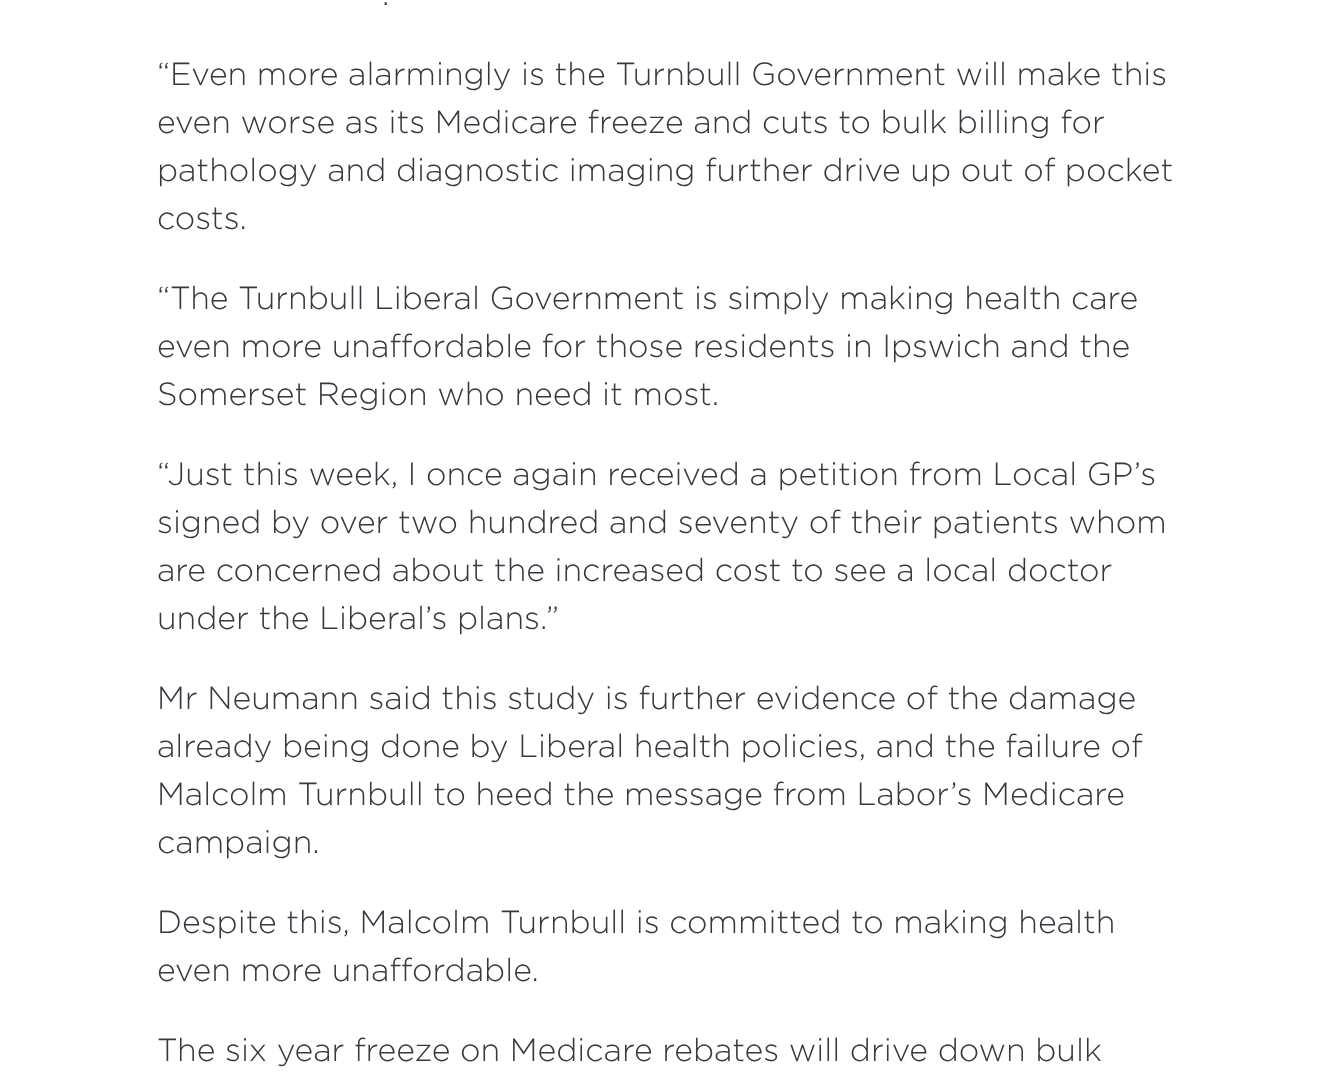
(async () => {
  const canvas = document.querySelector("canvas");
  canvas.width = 1334;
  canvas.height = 1075;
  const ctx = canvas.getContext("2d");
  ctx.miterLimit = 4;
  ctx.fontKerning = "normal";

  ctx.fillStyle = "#ffffff";
  ctx.fillRect(0, 0, 1334, 1075);
  ctx.font = "300 32px Gotham";
  ctx.fillStyle = "#343a40";
  for (const [text, x, y] of [
    [".", 382, 5],
    ["“Even more alarmingly is the Turnbull Government will make this", 157, 85],
    ["even worse as its Medicare freeze and cuts to bulk billing for", 157, 133],
    ["pathology and diagnostic imaging further drive up out of pocket", 157, 181],
    ["costs.", 157, 229],
    ["“The Turnbull Liberal Government is simply making health care", 157, 309],
    ["even more unaffordable for those residents in Ipswich and the", 157, 357],
    ["Somerset Region who need it most.", 157, 405],
    ["“Just this week, I once again received a petition from Local GP’s", 157, 485],
    ["signed by over two hundred and seventy of their patients whom", 157, 533],
    ["are concerned about the increased cost to see a local doctor", 157, 581],
    ["under the Liberal’s plans.”", 157, 629],
    ["Mr Neumann said this study is further evidence of the damage", 157, 709],
    ["already being done by Liberal health policies, and the failure of", 157, 757],
    ["Malcolm Turnbull to heed the message from Labor’s Medicare", 157, 805],
    ["campaign.", 157, 853],
    ["Despite this, Malcolm Turnbull is committed to making health", 157, 933],
    ["even more unaffordable.", 157, 981],
    ["The six year freeze on Medicare rebates will drive down bulk", 157, 1061],
  ]) {
    ctx.fillText(text, x, y);
  }
})();
